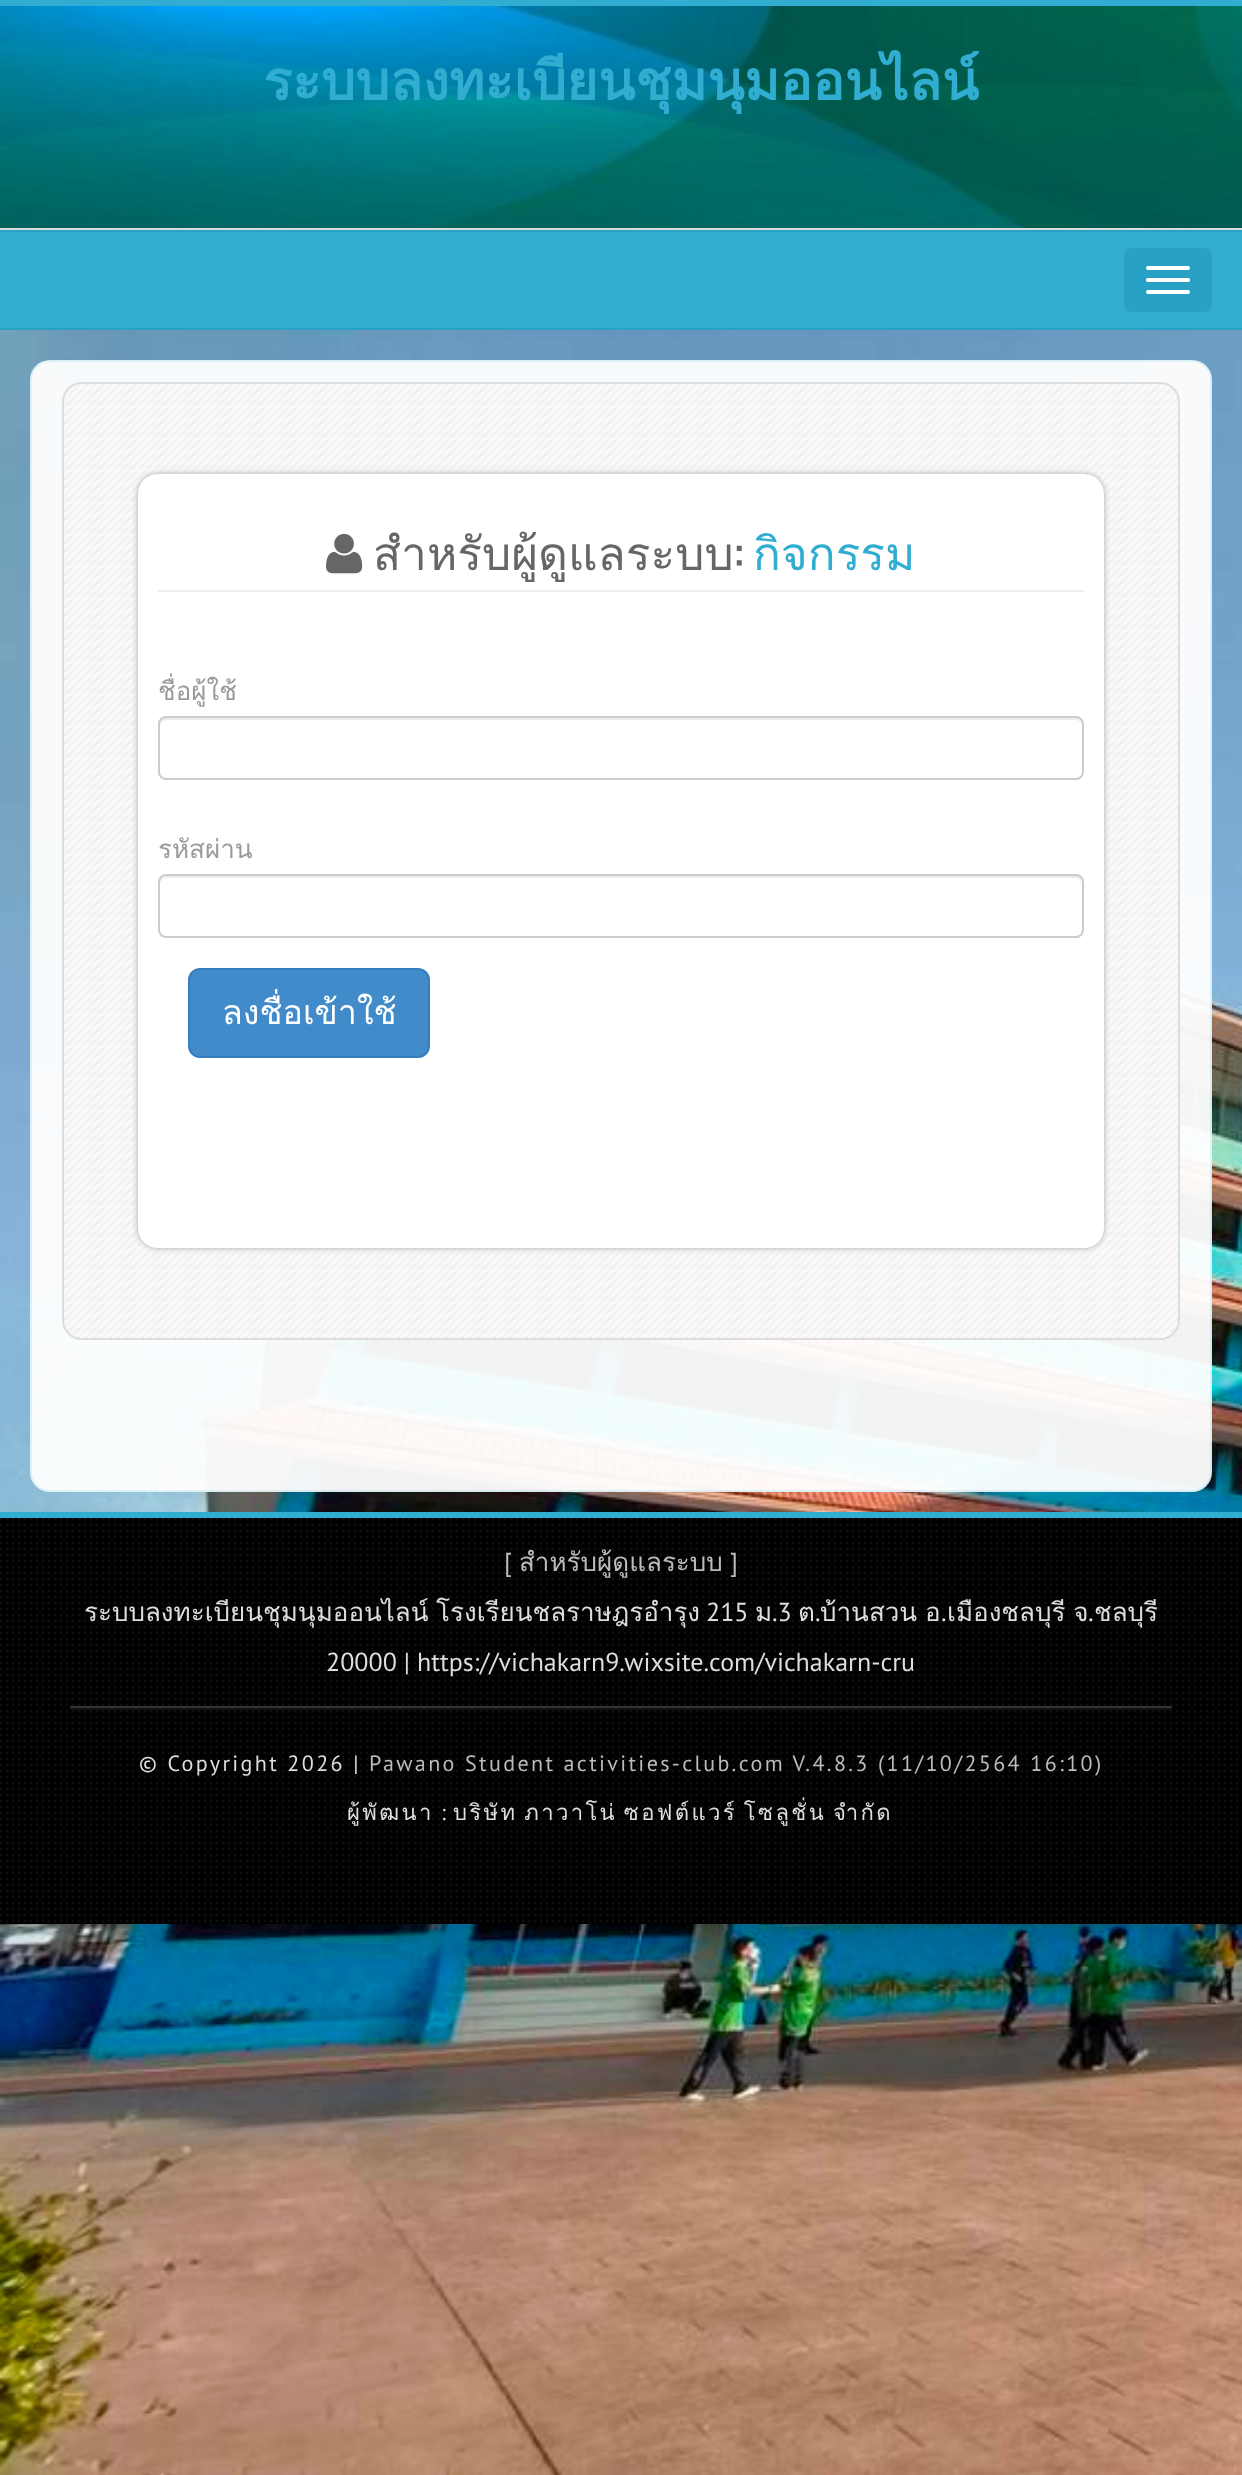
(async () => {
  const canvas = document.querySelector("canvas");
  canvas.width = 1242;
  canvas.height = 2475;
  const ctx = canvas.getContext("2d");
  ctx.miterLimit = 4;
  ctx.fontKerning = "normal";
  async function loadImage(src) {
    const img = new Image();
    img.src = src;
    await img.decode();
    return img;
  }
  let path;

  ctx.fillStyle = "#ffffff";
  ctx.fillRect(0, 0, 1242, 2475);
  ctx.drawImage(await loadImage("img/1.png"), 0, 330, 1242, 2145);
  ctx.fillStyle = "#30add1";
  ctx.fillRect(0, 0, 1242, 6);
  ctx.drawImage(await loadImage("img/2.png"), 0, 6, 1242, 222);
  for (const [x, y, w, h, color] of [
    [0, 228, 1242, 2, "#dddddd"],
    [0, 232, 1242, 96, "#30add1"],
    [0, 230, 1242, 2, "#29a1c4"],
    [0, 328, 1242, 2, "#29a1c4"],
  ]) {
    ctx.fillStyle = color;
    ctx.fillRect(x, y, w, h);
  }
  ctx.beginPath();
  ctx.roundRect(1124, 248, 88, 64, 8);
  ctx.fill();
  ctx.fillStyle = "#ffffff";
  ctx.beginPath();
  ctx.roundRect(1146, 266, 44, 4, 2);
  ctx.fill();
  ctx.beginPath();
  ctx.roundRect(1146, 278, 44, 4, 2);
  ctx.fill();
  ctx.beginPath();
  ctx.roundRect(1146, 290, 44, 4, 2);
  ctx.fill();
  ctx.fillStyle = "rgba(255, 255, 255, 0.95)";
  ctx.beginPath();
  ctx.roundRect(30, 360, 1182, 1132, 20);
  ctx.fill();
  ctx.beginPath();
  ctx.roundRect(31, 361, 1180, 1130, 19);
  ctx.strokeStyle = "rgba(48, 173, 209, 0.13)";
  ctx.lineWidth = 2;
  ctx.stroke();
  ctx.drawImage(await loadImage("img/3.png"), 62, 382, 1118, 958);
  ctx.beginPath();
  ctx.roundRect(63, 383, 1116, 956, 19);
  ctx.strokeStyle = "#dddddd";
  ctx.stroke();
  ctx.fillStyle = "#aaaaaa";
  ctx.filter = "blur(3px)";
  ctx.beginPath();
  ctx.roundRect(138, 474, 966, 774, 20);
  ctx.fill();
  ctx.filter = "none";
  ctx.fillStyle = "#ffffff";
  ctx.beginPath();
  ctx.roundRect(138, 474, 966, 774, 20);
  ctx.fill();
  ctx.drawImage(await loadImage("img/4.png"), 326, 533, 37, 41);
  ctx.fillStyle = "#eeeeee";
  ctx.fillRect(158, 590, 926, 2);
  ctx.fillStyle = "#ececec";
  path = new Path2D("M166 720H1076C1079 720 1082 723 1082 726V724C1082 721 1079 718 1076 718H166C163 718 160 721 160 724V726C160 723 163 720 166 720Z");
  ctx.fill(path);
  ctx.beginPath();
  ctx.roundRect(159, 717, 924, 62, 7);
  ctx.strokeStyle = "#cccccc";
  ctx.stroke();
  path = new Path2D("M166 878H1076C1079 878 1082 881 1082 884V882C1082 879 1079 876 1076 876H166C163 876 160 879 160 882V884C160 881 163 878 166 878Z");
  ctx.fill(path);
  ctx.beginPath();
  ctx.roundRect(159, 875, 924, 62, 7);
  ctx.stroke();
  ctx.fillStyle = "#428bca";
  ctx.beginPath();
  ctx.roundRect(189, 969, 240, 88, 11);
  ctx.fill();
  ctx.strokeStyle = "#357ebd";
  ctx.stroke();
  ctx.drawImage(await loadImage("img/5.png"), 0, 1518, 1242, 406);
  for (const [x, y, w, h, color] of [
    [0, 1512, 1242, 6, "#30add1"],
    [70, 1706, 1102, 2, "#333333"],
    [70, 1708, 1102, 2, "#111111"],
  ]) {
    ctx.fillStyle = color;
    ctx.fillRect(x, y, w, h);
  }
  ctx.font = "bold 54px Loma";
  ctx.fillStyle = "#30add1";
  ctx.fillText("ระบบลงทะเบียนชุมนุมออนไลน์", 263, 100);
  ctx.font = "46px Loma";
  ctx.fillStyle = "#666666";
  ctx.fillText("สำหรับผู้ดูแลระบบ", 373, 570);
  ctx.font = "46px Oswald";
  ctx.fillText(":", 734, 570);
  ctx.font = "46px Loma";
  ctx.fillStyle = "#30add1";
  ctx.fillText("กิจกรรม", 753, 570);
  ctx.font = "26px Loma";
  ctx.fillStyle = "#9a9a9a";
  ctx.fillText("ชื่อผู้ใช้", 158, 700);
  ctx.fillText("รหัสผ่าน", 158, 858);
  ctx.font = "34px Loma";
  ctx.fillStyle = "#ffffff";
  ctx.fillText("ลงชื่อเข้าใช้", 222, 1024);
  ctx.font = "26px PT Sans";
  ctx.fillStyle = "#bbbbbb";
  ctx.fillText("[", 504, 1571);
  ctx.font = "26px Loma";
  ctx.fillText("สำหรับผู้ดูแลระบบ", 519, 1571);
  ctx.font = "26px PT Sans";
  ctx.fillText("]", 730, 1571);
  ctx.font = "26px Loma";
  ctx.fillStyle = "#dddddd";
  ctx.fillText("ระบบลงทะเบียนชุมนุมออนไลน์", 84, 1621);
  ctx.fillText("โรงเรียนชลราษฎรอำรุง", 436, 1621);
  ctx.font = "26px PT Sans";
  ctx.fillText("215", 706, 1621);
  ctx.font = "26px Loma";
  ctx.fillText("ม", 755, 1621);
  ctx.font = "26px PT Sans";
  ctx.fillText(".3", 772, 1621);
  ctx.font = "26px Loma";
  ctx.fillText("ต", 798, 1621);
  ctx.fillText("ชลบุรี", 1094, 1621);
  ctx.font = "26px PT Sans";
  ctx.fillText(".", 815, 1621);
  ctx.wordSpacing = "-1px";
  ctx.font = "26px Loma";
  ctx.fillText("บ้านสวน อ", 820, 1621);
  ctx.wordSpacing = "0px";
  ctx.font = "26px PT Sans";
  ctx.fillText(".", 941, 1621);
  ctx.wordSpacing = "-1px";
  ctx.font = "26px Loma";
  ctx.fillText("เมืองชลบุรี จ", 947, 1621);
  ctx.wordSpacing = "0px";
  ctx.font = "26px PT Sans";
  ctx.fillText(".", 1088, 1621);
  ctx.fillText("20000 | https://vichakarn9.wixsite.com/vichakarn-cru", 326, 1671);
  ctx.letterSpacing = "2.35px";
  ctx.font = "22.1px PT Sans";
  ctx.fillText("© Copyright 2026 |", 139, 1771);
  ctx.fillStyle = "#bbbbbb";
  ctx.fillText("Pawano Student activities-club.com V.4.8.3 (11/10/2564 16:10)", 369, 1771);
  ctx.font = "22.1px Loma";
  ctx.fillStyle = "#dddddd";
  ctx.fillText("ผู้พัฒนา", 347, 1820);
  ctx.font = "22.1px PT Sans";
  ctx.fillText(":", 441, 1820);
  ctx.wordSpacing = "-3px";
  ctx.font = "22.1px Loma";
  ctx.fillText("บริษัท ภาวาโน่ ซอฟต์แวร์ โซลูชั่น จำกัด", 453, 1820);
})();
